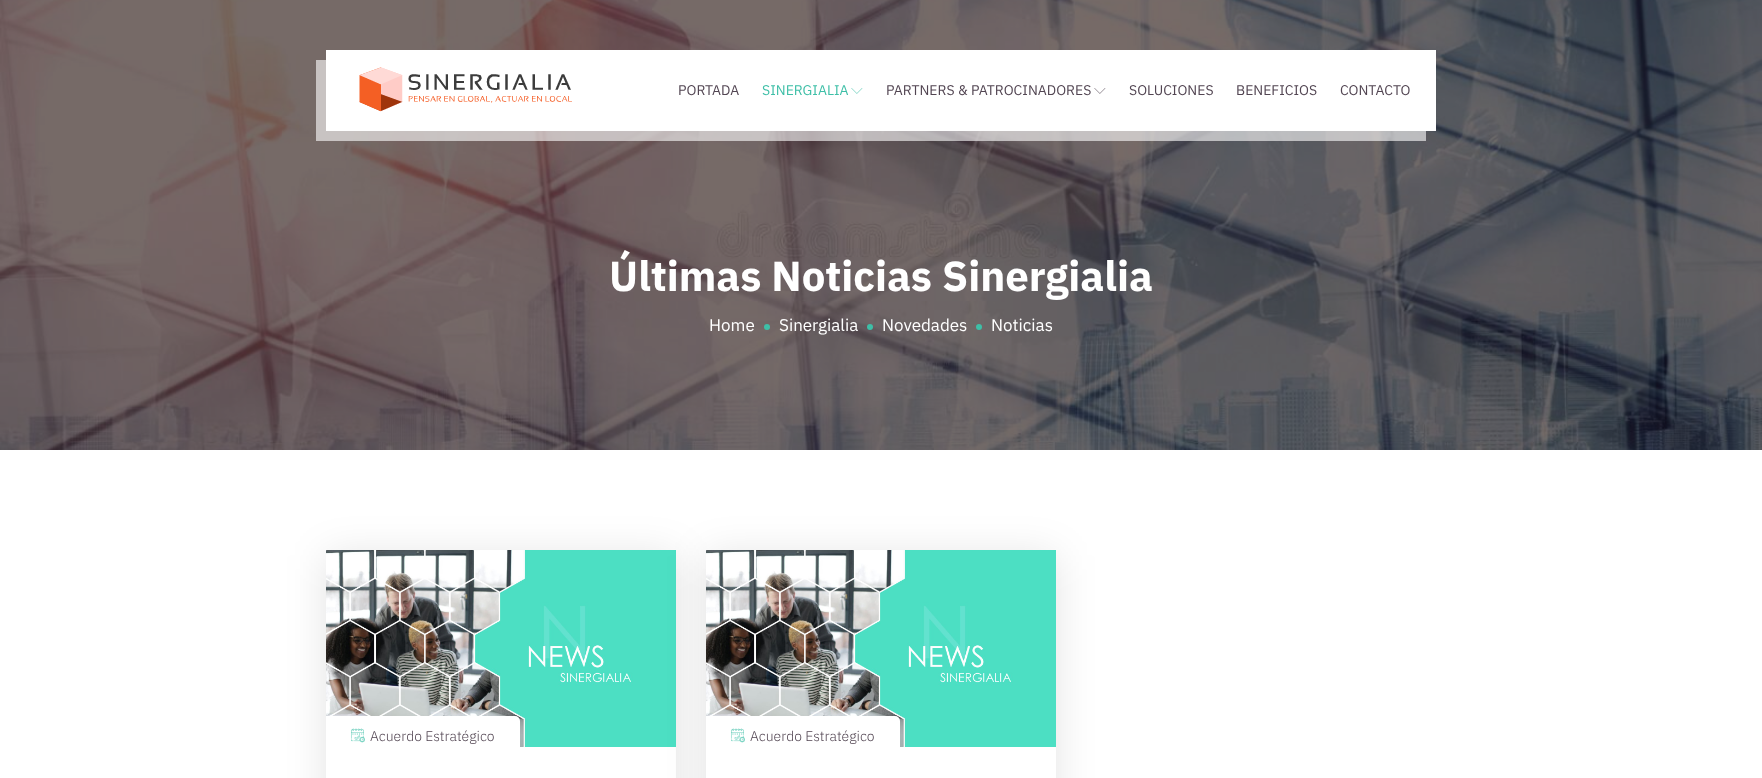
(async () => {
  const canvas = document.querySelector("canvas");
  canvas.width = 1762;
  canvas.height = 778;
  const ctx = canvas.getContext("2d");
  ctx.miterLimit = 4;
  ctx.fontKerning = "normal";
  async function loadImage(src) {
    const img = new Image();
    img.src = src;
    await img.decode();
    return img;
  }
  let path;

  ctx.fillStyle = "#ffffff";
  ctx.fillRect(0, 0, 1762, 778);
  ctx.drawImage(await loadImage("img/4.png"), 0, 0, 1762, 450);
  ctx.fillStyle = "rgba(255, 255, 255, 0.6)";
  path = new Path2D("M316 60V141H1426V131H326V60Z");
  ctx.fill(path);
  ctx.fillStyle = "#ffffff";
  ctx.fillRect(326, 50, 1110, 81);
  ctx.drawImage(await loadImage("img/1.png"), 359, 67, 213, 45);
  ctx.drawImage(await loadImage("img/2.png"), 851, 88, 12, 6);
  ctx.drawImage(await loadImage("img/3.png"), 1094, 88, 12, 6);
  ctx.fillStyle = "#3ebfa7";
  ctx.beginPath();
  ctx.arc(767, 327, 3, 0, Math.PI * 2);
  ctx.fill();
  ctx.beginPath();
  ctx.arc(870, 327, 3, 0, Math.PI * 2);
  ctx.fill();
  ctx.beginPath();
  ctx.arc(979, 327, 3, 0, Math.PI * 2);
  ctx.fill();
  ctx.save();
  path = new Path2D("M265 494H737V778H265ZM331 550H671C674 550 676 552 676 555V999C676 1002 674 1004 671 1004H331C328 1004 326 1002 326 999V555C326 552 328 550 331 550Z");
  ctx.clip(path, "evenodd");
  ctx.fillStyle = "rgba(0, 0, 0, 0.11)";
  ctx.filter = "blur(20px)";
  ctx.beginPath();
  ctx.roundRect(326, 555, 350, 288, 5);
  ctx.fill();
  ctx.filter = "none";
  ctx.restore();
  ctx.drawImage(await loadImage("img/5.png"), 326, 550, 350, 197);
  ctx.fillStyle = "#ffffff";
  ctx.beginPath();
  ctx.roundRect(326, 716, 194, 31, [0, 5, 0, 0]);
  ctx.fill();
  ctx.drawImage(await loadImage("img/6.png"), 351, 728, 14, 15);
  ctx.fillStyle = "rgba(0, 0, 0, 0.11)";
  ctx.filter = "blur(20px)";
  ctx.beginPath();
  ctx.roundRect(706, 555, 350, 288, 5);
  ctx.fill();
  ctx.filter = "none";
  ctx.fillStyle = "#ffffff";
  ctx.fillRect(706, 747, 350, 31);
  ctx.drawImage(await loadImage("img/7.png"), 706, 550, 350, 197);
  ctx.beginPath();
  ctx.roundRect(706, 716, 194, 31, [0, 5, 0, 0]);
  ctx.fill();
  ctx.drawImage(await loadImage("img/6.png"), 731, 728, 14, 15);
  ctx.font = "14px IBM Plex Sans";
  ctx.fillStyle = "#524552";
  ctx.fillText("PORTADA", 678, 95);
  ctx.fillStyle = "#3ebfa7";
  ctx.fillText("SINERGIALIA", 762, 95);
  ctx.fillStyle = "#524552";
  for (const [text, x, y] of [
    ["PARTNERS & PATROCINADORES", 886, 95],
    ["SOLUCIONES", 1129, 95],
    ["BENEFICIOS", 1236, 95],
    ["CONTACTO", 1340, 95],
  ]) {
    ctx.fillText(text, x, y);
  }
  ctx.font = "bold 42px IBM Plex Sans";
  ctx.fillStyle = "#ffffff";
  ctx.fillText("Últimas Noticias Sinergialia", 609, 291);
  ctx.font = "17px IBM Plex Sans";
  for (const [text, x, y] of [
    ["Home", 709, 331],
    ["Sinergialia", 779, 331],
    ["Novedades", 882, 331],
    ["Noticias", 991, 331],
  ]) {
    ctx.fillText(text, x, y);
  }
  ctx.font = "300 14px IBM Plex Sans";
  ctx.fillStyle = "#524552";
  ctx.fillText("Acuerdo Estratégico", 370, 741);
  ctx.fillText("Acuerdo Estratégico", 750, 741);
})();
